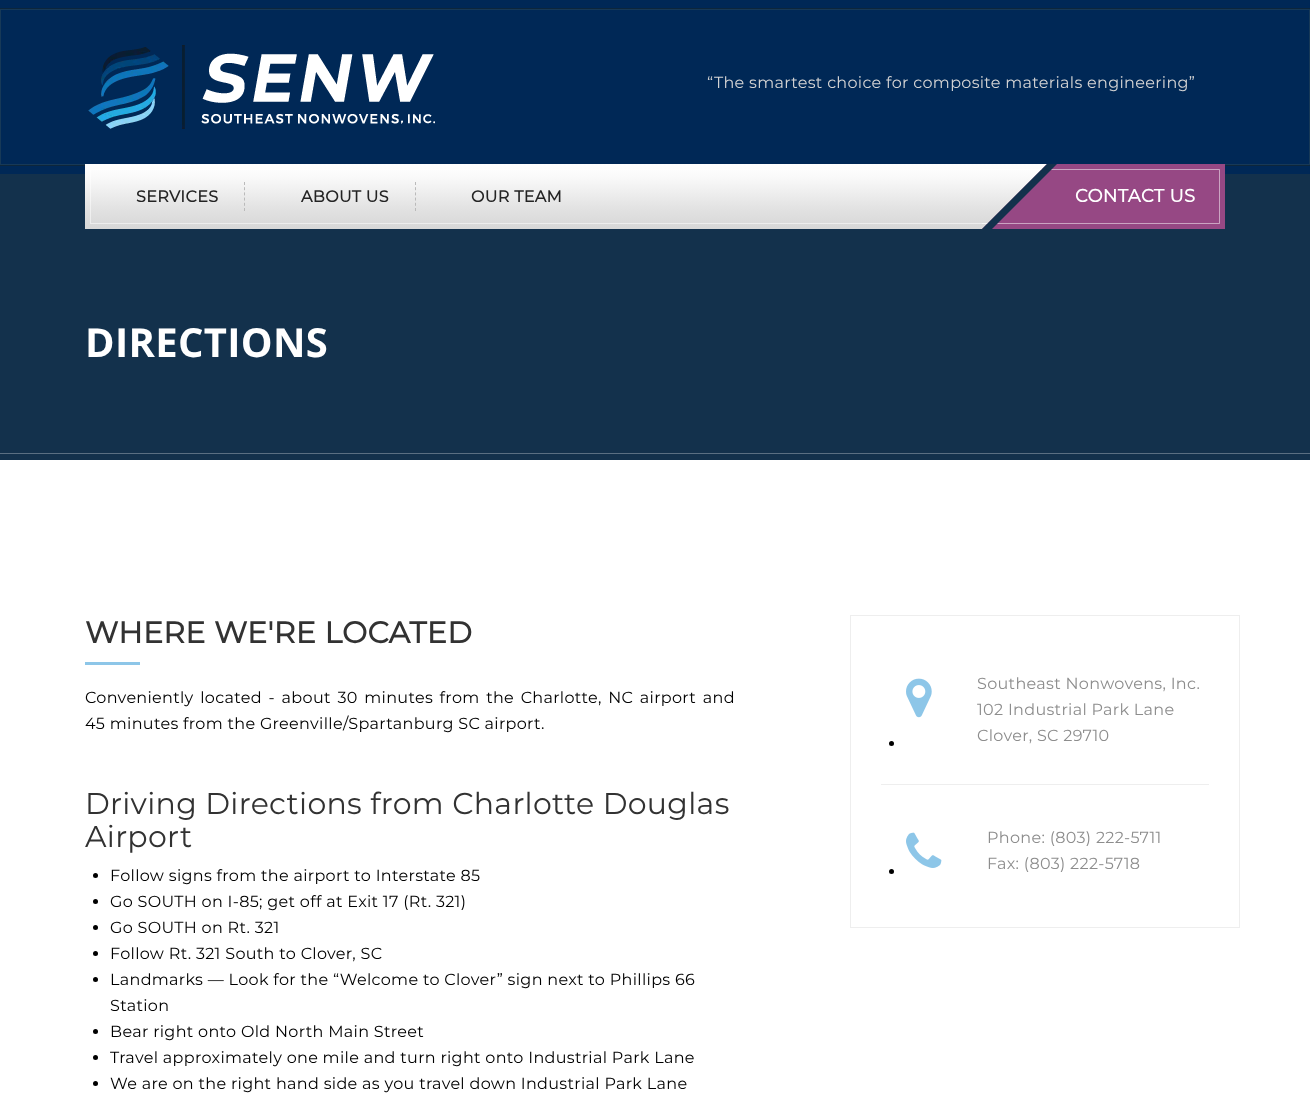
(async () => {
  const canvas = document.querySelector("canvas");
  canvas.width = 1310;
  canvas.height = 1109;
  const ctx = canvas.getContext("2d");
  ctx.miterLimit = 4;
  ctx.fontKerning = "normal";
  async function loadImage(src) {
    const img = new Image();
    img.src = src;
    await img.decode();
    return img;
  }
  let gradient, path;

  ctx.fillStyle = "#ffffff";
  ctx.fillRect(0, 0, 1310, 1109);
  ctx.fillStyle = "#002856";
  ctx.fillRect(0, 0, 1310, 174);
  ctx.strokeStyle = "#0d263b";
  ctx.strokeRect(0.5, 8.5, 1309, 157);
  ctx.strokeStyle = "#173957";
  ctx.strokeRect(0.5, 9.5, 1309, 155);
  ctx.drawImage(await loadImage("img/1.png"), 88, 45, 347, 84);
  ctx.fillStyle = "#13314c";
  ctx.fillRect(0, 174, 1310, 286);
  gradient = ctx.createLinearGradient(655, 164, 655, 229);
  gradient.addColorStop(0, "#ffffff");
  gradient.addColorStop(0.19, "#fafafa");
  gradient.addColorStop(0.69, "#e2e2e2");
  gradient.addColorStop(1, "#d7d7d7");
  ctx.fillStyle = gradient;
  ctx.fillRect(85, 164, 962, 65);
  ctx.strokeStyle = "rgba(255, 255, 255, 0.5)";
  ctx.strokeRect(90.5, 169.5, 1129, 54);
  path = new Path2D("M244.5 182V211");
  ctx.strokeStyle = "#bababa";
  ctx.setLineDash([3, 2.2]);
  ctx.stroke(path);
  path = new Path2D("M415.5 182V211");
  ctx.stroke(path);
  ctx.fillStyle = "#964884";
  ctx.fillRect(1062, 164, 163, 65);
  path = new Path2D("M1047 164H1127L1062 229H982Z");
  ctx.fill(path);
  ctx.fillStyle = "rgba(255, 255, 255, 0.5)";
  path = new Path2D("M982 169H1220L1219 170H982Z");
  ctx.fill(path);
  path = new Path2D("M1220 169V224L1219 223V170Z");
  ctx.fill(path);
  path = new Path2D("M1220 224H982V223H1219Z");
  ctx.fill(path);
  ctx.fillStyle = "#13314c";
  path = new Path2D("M1047 164H1057L992 229H982Z");
  ctx.fill(path);
  ctx.fillStyle = "#5a6f82";
  ctx.fillRect(0, 453, 1310, 1);
  ctx.fillStyle = "#8dc6e8";
  ctx.fillRect(85, 662, 55, 3);
  ctx.fillStyle = "#000000";
  ctx.beginPath();
  ctx.arc(95.5, 875.5, 2.5, 0, Math.PI * 2);
  ctx.fill();
  ctx.beginPath();
  ctx.arc(95.5, 901.5, 2.5, 0, Math.PI * 2);
  ctx.fill();
  ctx.beginPath();
  ctx.arc(95.5, 927.5, 2.5, 0, Math.PI * 2);
  ctx.fill();
  ctx.beginPath();
  ctx.arc(95.5, 953.5, 2.5, 0, Math.PI * 2);
  ctx.fill();
  ctx.beginPath();
  ctx.arc(95.5, 979.5, 2.5, 0, Math.PI * 2);
  ctx.fill();
  ctx.beginPath();
  ctx.arc(95.5, 1031.5, 2.5, 0, Math.PI * 2);
  ctx.fill();
  ctx.beginPath();
  ctx.arc(95.5, 1057.5, 2.5, 0, Math.PI * 2);
  ctx.fill();
  ctx.beginPath();
  ctx.arc(95.5, 1083.5, 2.5, 0, Math.PI * 2);
  ctx.fill();
  ctx.strokeStyle = "#eeeeee";
  ctx.setLineDash([]);
  ctx.strokeRect(850.5, 615.5, 389, 312);
  ctx.fillStyle = "#eeeeee";
  ctx.fillRect(881, 784, 328, 1);
  ctx.drawImage(await loadImage("img/2.png"), 906, 678, 26, 40);
  ctx.fillStyle = "#000000";
  ctx.beginPath();
  ctx.arc(891.5, 743.5, 2.5, 0, Math.PI * 2);
  ctx.fill();
  ctx.drawImage(await loadImage("img/3.png"), 906, 832, 36, 36);
  ctx.beginPath();
  ctx.arc(891.5, 871.5, 2.5, 0, Math.PI * 2);
  ctx.fill();
  ctx.letterSpacing = "0.32px";
  ctx.font = "100 16px Montserrat";
  ctx.fillStyle = "#d4d4d4";
  ctx.fillText("“The smartest choice for composite materials engineering”", 707, 88);
  ctx.font = "bold 16px Montserrat";
  ctx.fillStyle = "#242424";
  for (const [text, x, y] of [
    ["SERVICES", 136, 202],
    ["ABOUT US", 301, 202],
    ["OUR TEAM", 471, 202],
  ]) {
    ctx.fillText(text, x, y);
  }
  ctx.font = "bold 18px Montserrat";
  ctx.fillStyle = "#ffffff";
  ctx.fillText("CONTACT US", 1075, 202);
  ctx.font = "bold 40px Open Sans";
  ctx.fillText("DIRECTIONS", 85, 357);
  ctx.font = "bold 30px Montserrat";
  ctx.fillStyle = "#323232";
  ctx.fillText("WHERE WE'RE LOCATED", 85, 643);
  ctx.wordSpacing = "2.1px";
  ctx.font = "100 16px Montserrat";
  ctx.fillStyle = "#000000";
  ctx.fillText("Conveniently located - about 30 minutes from the Charlotte, NC airport and", 85, 703);
  ctx.wordSpacing = "0px";
  ctx.fillText("45 minutes from the Greenville/Spartanburg SC airport.", 85, 729);
  ctx.font = "100 30px Montserrat";
  ctx.fillStyle = "#323232";
  ctx.fillText("Driving Directions from Charlotte Douglas", 85, 814);
  ctx.fillText("Airport", 85, 847);
  ctx.font = "100 16px Montserrat";
  ctx.fillStyle = "#000000";
  for (const [text, x, y] of [
    ["Follow signs from the airport to Interstate 85", 110, 881],
    ["Go SOUTH on I-85; get off at Exit 17 (Rt. 321)", 110, 907],
    ["Go SOUTH on Rt. 321", 110, 933],
    ["Follow Rt. 321 South to Clover, SC", 110, 959],
    ["Landmarks — Look for the “Welcome to Clover” sign next to Phillips 66", 110, 985],
    ["Station", 110, 1011],
    ["Bear right onto Old North Main Street", 110, 1037],
    ["Travel approximately one mile and turn right onto Industrial Park Lane", 110, 1063],
    ["We are on the right hand side as you travel down Industrial Park Lane", 110, 1089],
  ]) {
    ctx.fillText(text, x, y);
  }
  ctx.fillStyle = "#8d8d8d";
  for (const [text, x, y] of [
    ["Southeast Nonwovens, Inc.", 977, 689],
    ["102 Industrial Park Lane", 977, 715],
    ["Clover, SC 29710", 977, 741],
    ["Phone: (803) 222-5711", 987, 843],
    ["Fax: (803) 222-5718", 987, 869],
  ]) {
    ctx.fillText(text, x, y);
  }
})();
